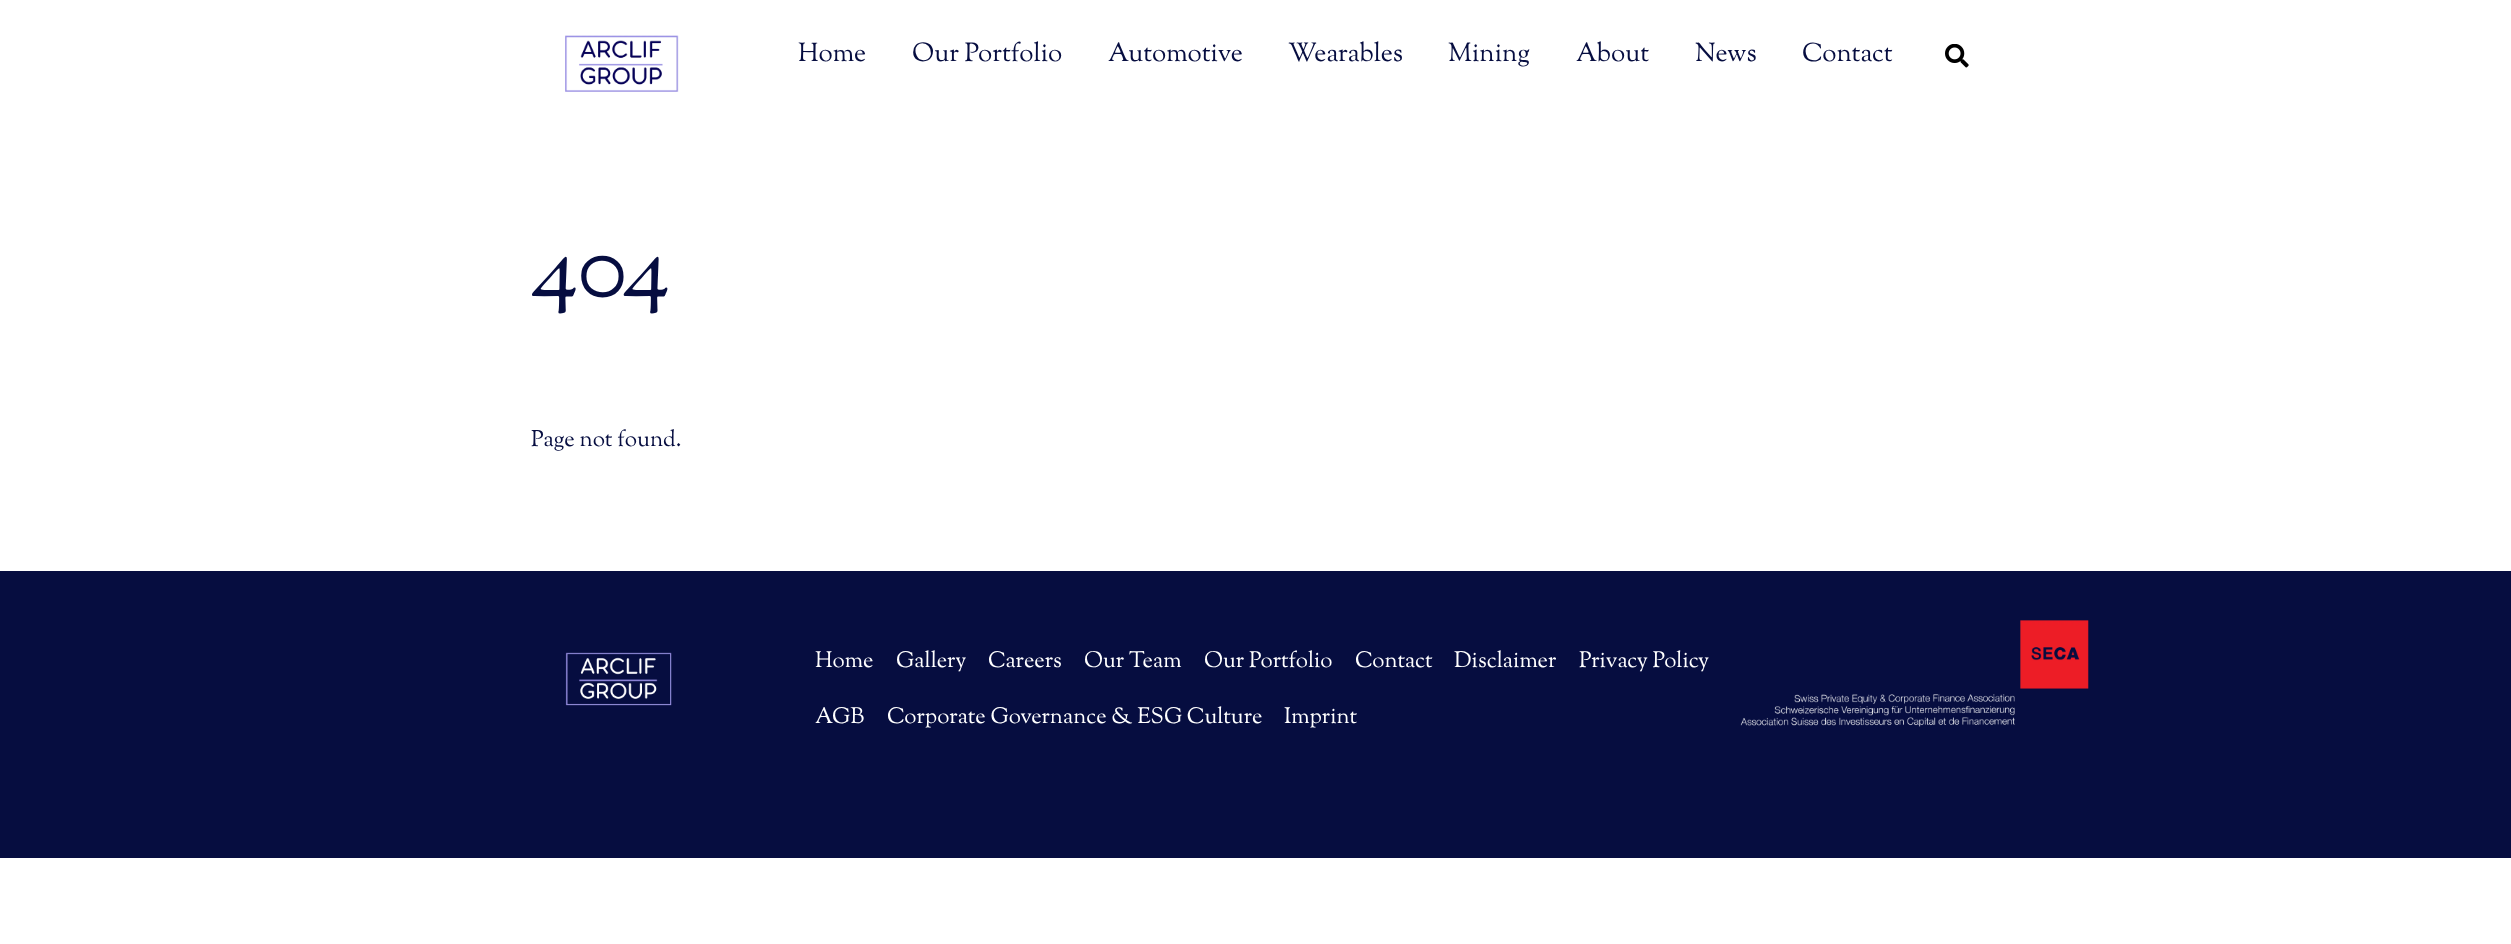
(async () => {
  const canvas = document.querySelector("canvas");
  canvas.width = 2511;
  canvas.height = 944;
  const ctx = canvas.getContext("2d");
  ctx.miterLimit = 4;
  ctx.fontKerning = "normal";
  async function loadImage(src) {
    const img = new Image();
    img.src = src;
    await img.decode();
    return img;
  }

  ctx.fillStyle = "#ffffff";
  ctx.fillRect(0, 0, 2511, 944);
  ctx.drawImage(await loadImage("img/1.png"), 565, 35, 114, 57);
  ctx.drawImage(await loadImage("img/2.png"), 1945, 44, 24, 24);
  ctx.fillStyle = "#060d40";
  ctx.fillRect(0, 571, 2511, 287);
  ctx.drawImage(await loadImage("img/3.png"), 565, 652, 107, 54);
  ctx.drawImage(await loadImage("img/4.png"), 1740, 620, 349, 107);
  ctx.font = "26px Sorts Mill Goudy";
  for (const [text, x, y] of [
    ["Home", 798, 61],
    ["Our Portfolio", 912, 61],
    ["Automotive", 1108, 61],
    ["Wearables", 1288, 61],
    ["Mining", 1448, 61],
    ["About", 1576, 61],
    ["News", 1695, 61],
    ["Contact", 1802, 61],
  ]) {
    ctx.fillText(text, x, y);
  }
  ctx.font = "94px Sorts Mill Goudy";
  ctx.fillText("404", 531, 296);
  ctx.font = "22.5px Sorts Mill Goudy";
  ctx.fillText("Page not found.", 531, 446);
  ctx.font = "22.25px Sorts Mill Goudy";
  ctx.fillStyle = "#ffffff";
  for (const [text, x, y] of [
    ["Home", 815, 667],
    ["Gallery", 896, 667],
    ["Careers", 988, 667],
    ["Our Team", 1084, 667],
    ["Our Portfolio", 1204, 667],
    ["Contact", 1355, 667],
    ["Disclaimer", 1454, 667],
    ["Privacy Policy", 1579, 667],
    ["AGB", 815, 723],
    ["Corporate Governance & ESG Culture", 887, 723],
    ["Imprint", 1284, 723],
  ]) {
    ctx.fillText(text, x, y);
  }
})();
